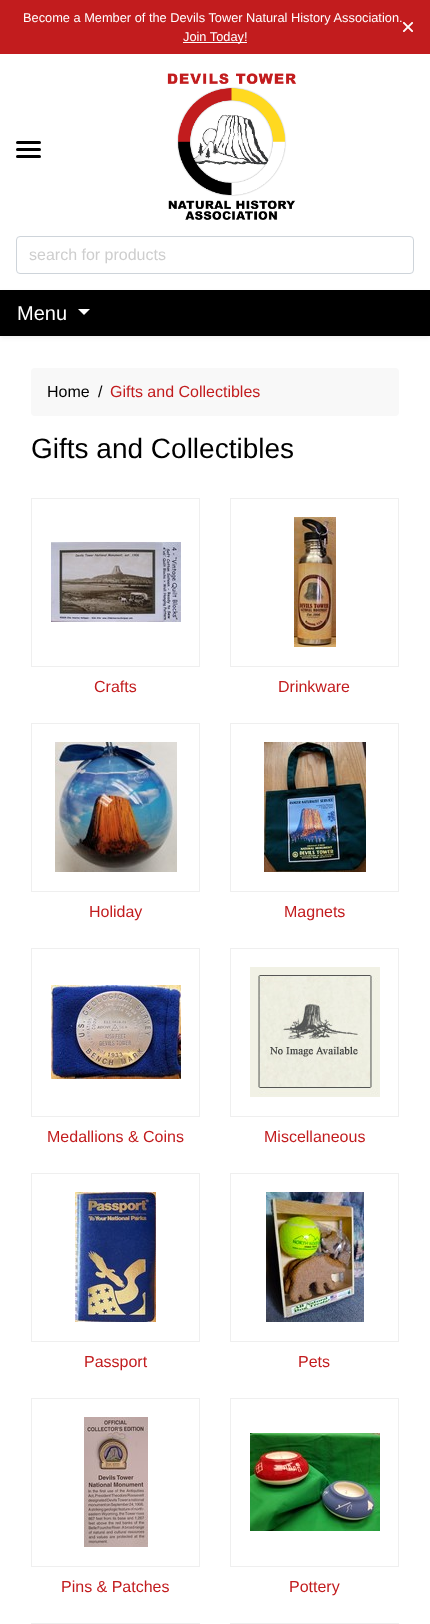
(async () => {
  const canvas = document.querySelector("canvas");
  canvas.width = 430;
  canvas.height = 1624;
  const ctx = canvas.getContext("2d");
  ctx.miterLimit = 4;
  ctx.fontKerning = "normal";
  async function loadImage(src) {
    const img = new Image();
    img.src = src;
    await img.decode();
    return img;
  }
  let path;

  ctx.fillStyle = "#ffffff";
  ctx.fillRect(0, 0, 430, 1624);
  ctx.fillStyle = "#c21c1e";
  ctx.fillRect(0, 0, 430, 54);
  ctx.fillStyle = "#ffffff";
  ctx.fillRect(183, 42, 64, 1);
  ctx.drawImage(await loadImage("img/1.png"), 403, 22, 10, 10);
  ctx.fillStyle = "#000000";
  ctx.beginPath();
  ctx.roundRect(16, 141, 25, 3, 1.5);
  ctx.fill();
  ctx.beginPath();
  ctx.roundRect(16, 148, 25, 3, 1.5);
  ctx.fill();
  ctx.beginPath();
  ctx.roundRect(16, 155, 25, 3, 1.5);
  ctx.fill();
  ctx.drawImage(await loadImage("img/2.png"), 167, 73, 130, 147);
  ctx.beginPath();
  ctx.roundRect(16.5, 236.5, 397, 37, 3.5);
  ctx.strokeStyle = "#ced4da";
  ctx.stroke();
  ctx.fillStyle = "rgba(100, 100, 100, 0.1)";
  ctx.filter = "blur(2px)";
  ctx.beginPath();
  ctx.rect(0, 292, 430, 46);
  ctx.fill();
  ctx.filter = "none";
  ctx.fillStyle = "#000000";
  ctx.fillRect(0, 290, 430, 46);
  ctx.fillStyle = "#ffffff";
  path = new Path2D("M78 309H90L84 315Z");
  ctx.fill(path);
  ctx.fillStyle = "#f8f8f8";
  ctx.beginPath();
  ctx.roundRect(31, 368, 368, 48, 4);
  ctx.fill();
  ctx.strokeStyle = "#efefef";
  ctx.strokeRect(31.5, 498.5, 168, 168);
  ctx.drawImage(await loadImage("img/3.png"), 51, 542, 130, 80);
  ctx.strokeRect(230.5, 498.5, 168, 168);
  ctx.drawImage(await loadImage("img/4.png"), 294, 517, 42, 130);
  ctx.strokeRect(31.5, 723.5, 168, 168);
  ctx.drawImage(await loadImage("img/5.png"), 55, 742, 122, 130);
  ctx.strokeRect(230.5, 723.5, 168, 168);
  ctx.drawImage(await loadImage("img/6.png"), 264, 742, 102, 130);
  ctx.strokeRect(31.5, 948.5, 168, 168);
  ctx.drawImage(await loadImage("img/7.png"), 51, 985, 130, 94);
  ctx.strokeRect(230.5, 948.5, 168, 168);
  ctx.drawImage(await loadImage("img/8.png"), 250, 967, 130, 130);
  ctx.strokeRect(31.5, 1173.5, 168, 168);
  ctx.drawImage(await loadImage("img/9.png"), 75, 1192, 81, 130);
  ctx.strokeRect(230.5, 1173.5, 168, 168);
  ctx.drawImage(await loadImage("img/10.png"), 266, 1192, 98, 130);
  ctx.strokeRect(31.5, 1398.5, 168, 168);
  ctx.drawImage(await loadImage("img/11.png"), 84, 1417, 64, 130);
  ctx.strokeRect(230.5, 1398.5, 168, 168);
  ctx.drawImage(await loadImage("img/12.png"), 250, 1433, 130, 98);
  ctx.strokeRect(31.5, 1623.5, 168, 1);
  ctx.strokeRect(230.5, 1623.5, 168, 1);
  ctx.font = "12.8px Liberation Sans";
  ctx.fillStyle = "#ffffff";
  ctx.fillText("Become a Member of the Devils Tower Natural History Association.", 23, 22);
  ctx.fillText("Join Today!", 183, 41);
  ctx.font = "16px Liberation Sans";
  ctx.fillStyle = "#cecece";
  ctx.fillText("search for products", 29, 260);
  ctx.font = "20px Liberation Sans";
  ctx.fillStyle = "#ffffff";
  ctx.fillText("Menu", 17, 320);
  ctx.font = "16px Liberation Sans";
  ctx.fillStyle = "#000000";
  ctx.fillText("Home", 47, 397);
  ctx.fillText("/", 98, 397);
  ctx.fillStyle = "#c21c1e";
  ctx.fillText("Gifts and Collectibles", 110, 397);
  ctx.font = "28px Liberation Sans";
  ctx.fillStyle = "#000000";
  ctx.fillText("Gifts and Collectibles", 31, 458);
  ctx.font = "16px Liberation Sans";
  ctx.fillStyle = "#c21c1e";
  for (const [text, x, y] of [
    ["Crafts", 94, 692],
    ["Drinkware", 278, 692],
    ["Holiday", 89, 917],
    ["Magnets", 284, 917],
    ["Medallions & Coins", 47, 1142],
    ["Miscellaneous", 264, 1142],
    ["Passport", 84, 1367],
    ["Pets", 298, 1367],
    ["Pins & Patches", 61, 1592],
    ["Pottery", 289, 1592],
  ]) {
    ctx.fillText(text, x, y);
  }
})();
